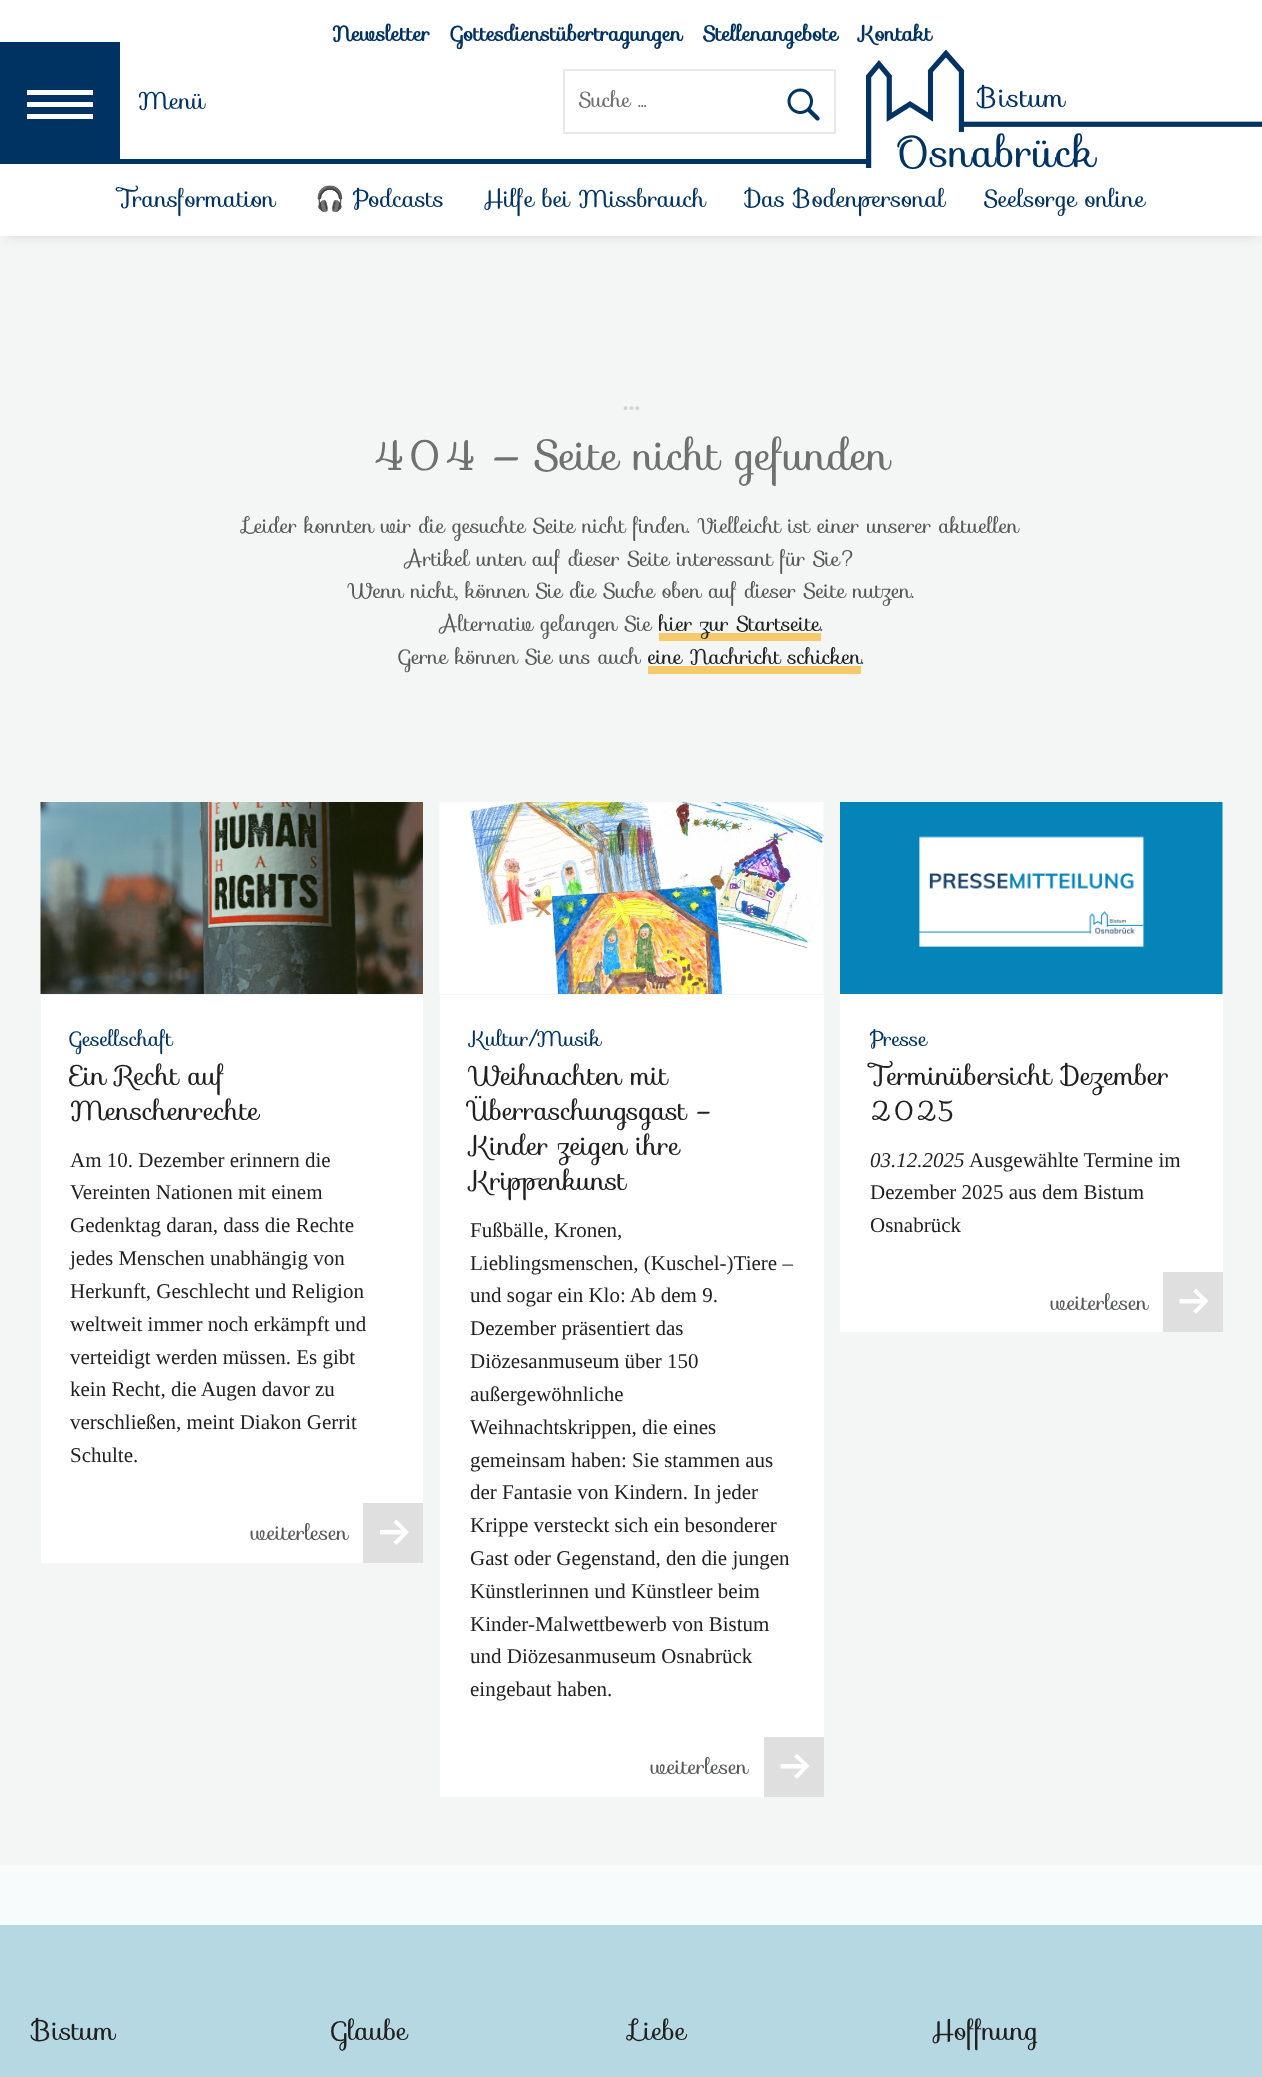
(async () => {
  const canvas = document.querySelector("canvas");
  canvas.width = 1262;
  canvas.height = 2077;
  const ctx = canvas.getContext("2d");
  ctx.miterLimit = 4;
  ctx.fontKerning = "normal";
  async function loadImage(src) {
    const img = new Image();
    img.src = src;
    await img.decode();
    return img;
  }
  let path;

  ctx.fillStyle = "#f4f5f5";
  ctx.fillRect(0, 0, 1262, 2077);
  ctx.fillStyle = "rgba(33, 33, 33, 0.15)";
  ctx.filter = "blur(6px)";
  ctx.beginPath();
  ctx.rect(6, 12, 1251, 224);
  ctx.fill();
  ctx.filter = "none";
  for (const [x, y, w, h, color] of [
    [0, 0, 1262, 236, "#ffffff"],
    [0, 42, 120, 117, "#003362"],
    [27, 102, 66, 5, "#ffffff"],
    [27, 90, 66, 5, "#ffffff"],
    [27, 114, 66, 5, "#ffffff"],
  ]) {
    ctx.fillStyle = color;
    ctx.fillRect(x, y, w, h);
  }
  ctx.strokeStyle = "#e7e9e9";
  ctx.lineWidth = 2;
  ctx.strokeRect(564, 70, 271, 63);
  ctx.drawImage(await loadImage("img/1.png"), 787, 88, 33, 33);
  ctx.drawImage(await loadImage("img/2.png"), 866, 50, 396, 118);
  for (const [x, y, w, h, color] of [
    [0, 159, 866, 5, "#003362"],
    [659, 633, 162, 8, "#f6ca6b"],
    [648, 666, 213, 8, "#f6ca6b"],
  ]) {
    ctx.fillStyle = color;
    ctx.fillRect(x, y, w, h);
  }
  ctx.drawImage(await loadImage("img/3.png"), 40, 802, 383, 192);
  ctx.fillStyle = "#ffffff";
  ctx.fillRect(41, 995, 382, 568);
  ctx.fillStyle = "#dfdfdf";
  ctx.fillRect(363, 1503, 60, 60);
  ctx.fillStyle = "#ffffff";
  path = new Path2D("M396.5 1519.5L393.5 1522.5L401.5 1530H380V1534.5H401.5L393.5 1542L396.5 1545L409 1532Z");
  ctx.fill(path);
  ctx.drawImage(await loadImage("img/4.png"), 439, 802, 385, 192);
  ctx.fillRect(440, 995, 384, 802);
  ctx.fillStyle = "#dfdfdf";
  ctx.fillRect(764, 1737, 60, 60);
  ctx.fillStyle = "#ffffff";
  path = new Path2D("M797 1753.5L794 1756.5L802 1764H780.5V1768.5H802L794 1776L797 1779L809.5 1766Z");
  ctx.fill(path);
  ctx.drawImage(await loadImage("img/5.png"), 840, 802, 383, 192);
  ctx.fillRect(840, 995, 383, 337);
  ctx.fillStyle = "#dfdfdf";
  ctx.fillRect(1163, 1272, 60, 60);
  ctx.fillStyle = "#ffffff";
  path = new Path2D("M1196 1288.5L1193 1291.5L1201 1299H1179.5V1303.5H1201L1193 1311L1196 1314L1208.5 1301Z");
  ctx.fill(path);
  ctx.fillStyle = "#f8fbfc";
  ctx.fillRect(0, 1865, 1262, 60);
  ctx.fillStyle = "#b6d8e2";
  ctx.fillRect(0, 1925, 1262, 152);
  ctx.font = "bold 21px Sofia";
  ctx.fillStyle = "#003362";
  for (const [text, x, y] of [
    ["Newsletter", 332, 41],
    ["Gottesdienstübertragungen", 451, 41],
    ["Stellenangebote", 703, 41],
    ["Kontakt", 859, 41],
  ]) {
    ctx.fillText(text, x, y);
  }
  ctx.font = "24px Sofia";
  ctx.fillText("Menü", 138, 109);
  ctx.font = "21px Sofia";
  ctx.fillStyle = "#707070";
  ctx.fillText("Suche …", 579, 107);
  ctx.letterSpacing = "0.75px";
  ctx.font = "27px Sofia";
  ctx.fillStyle = "#003362";
  ctx.fillText("Bistum", 978, 107);
  ctx.font = "42px Sofia";
  ctx.fillText("Osnabrück", 896, 167);
  ctx.letterSpacing = "0px";
  ctx.font = "24px Sofia";
  ctx.fillText("Transformation", 118, 207);
  ctx.font = "bold 24px Noto Color Emoji";
  ctx.fillText("🎧", 315, 207);
  ctx.font = "24px Sofia";
  for (const [text, x, y] of [
    ["Podcasts", 353, 207],
    ["Hilfe bei Missbrauch", 483, 207],
    ["Das Bodenpersonal", 745, 207],
    ["Seelsorge online", 984, 207],
  ]) {
    ctx.fillText(text, x, y);
  }
  ctx.font = "42px Sofia";
  ctx.fillStyle = "#d3d4d4";
  ctx.fillText("…", 623, 410);
  ctx.fillStyle = "#707070";
  ctx.fillText("404 — Seite nicht gefunden", 372, 470);
  ctx.font = "21px Sofia";
  ctx.fillStyle = "#575a59";
  for (const [text, x, y] of [
    ["Leider konnten wir die gesuchte Seite nicht finden. Vielleicht ist einer unserer aktuellen", 244, 533],
    ["Artikel unten auf dieser Seite interessant für Sie?", 405, 566],
    ["Wenn nicht, können Sie die Suche oben auf dieser Seite nutzen.", 349, 598],
    ["Alternativ gelangen Sie", 440, 631],
    [".", 820, 631],
  ]) {
    ctx.fillText(text, x, y);
  }
  ctx.fillStyle = "#212121";
  ctx.fillText("hier zur Startseite", 659, 631);
  ctx.fillStyle = "#575a59";
  ctx.fillText("Gerne können Sie uns auch", 399, 664);
  ctx.fillText(".", 861, 664);
  ctx.fillStyle = "#212121";
  ctx.fillText("eine Nachricht schicken", 648, 664);
  ctx.fillStyle = "#003362";
  ctx.fillText("Gesellschaft", 70, 1046);
  ctx.font = "27px Sofia";
  ctx.fillStyle = "#212121";
  ctx.fillText("Ein Recht auf", 70, 1085);
  ctx.fillText("Menschenrechte", 70, 1120);
  ctx.font = "21px Liberation Serif";
  for (const [text, x, y] of [
    ["Am 10. Dezember erinnern die", 70, 1167],
    ["Vereinten Nationen mit einem", 70, 1199],
    ["Gedenktag daran, dass die Rechte", 70, 1232],
    ["jedes Menschen unabhängig von", 70, 1265],
    ["Herkunft, Geschlecht und Religion", 70, 1298],
    ["weltweit immer noch erkämpft und", 70, 1331],
    ["verteidigt werden müssen. Es gibt", 70, 1364],
    ["kein Recht, die Augen davor zu", 70, 1396],
    ["verschließen, meint Diakon Gerrit", 70, 1429],
    ["Schulte.", 70, 1462],
  ]) {
    ctx.fillText(text, x, y);
  }
  ctx.font = "21px Sofia";
  ctx.fillStyle = "#575a59";
  ctx.fillText("weiterlesen", 251, 1540);
  ctx.fillStyle = "#003362";
  ctx.fillText("Kultur/Musik", 470, 1046);
  ctx.font = "27px Sofia";
  ctx.fillStyle = "#212121";
  for (const [text, x, y] of [
    ["Weihnachten mit", 470, 1085],
    ["Überraschungsgast –", 470, 1120],
    ["Kinder zeigen ihre", 470, 1155],
    ["Krippenkunst", 470, 1190],
  ]) {
    ctx.fillText(text, x, y);
  }
  ctx.font = "21px Liberation Serif";
  for (const [text, x, y] of [
    ["Fußbälle, Kronen,", 470, 1237],
    ["Lieblingsmenschen, (Kuschel-)Tiere –", 470, 1270],
    ["und sogar ein Klo: Ab dem 9.", 470, 1302],
    ["Dezember präsentiert das", 470, 1335],
    ["Diözesanmuseum über 150", 470, 1368],
    ["außergewöhnliche", 470, 1401],
    ["Weihnachtskrippen, die eines", 470, 1434],
    ["gemeinsam haben: Sie stammen aus", 470, 1467],
    ["der Fantasie von Kindern. In jeder", 470, 1499],
    ["Krippe versteckt sich ein besonderer", 470, 1532],
    ["Gast oder Gegenstand, den die jungen", 470, 1565],
    ["Künstlerinnen und Künstleer beim", 470, 1598],
    ["Kinder-Malwettbewerb von Bistum", 470, 1631],
    ["und Diözesanmuseum Osnabrück", 470, 1663],
    ["eingebaut haben.", 470, 1696],
  ]) {
    ctx.fillText(text, x, y);
  }
  ctx.font = "21px Sofia";
  ctx.fillStyle = "#575a59";
  ctx.fillText("weiterlesen", 651, 1774);
  ctx.fillStyle = "#003362";
  ctx.fillText("Presse", 870, 1046);
  ctx.font = "27px Sofia";
  ctx.fillStyle = "#212121";
  ctx.fillText("Terminübersicht Dezember", 870, 1085);
  ctx.fillText("2025", 870, 1120);
  ctx.font = "italic 21px Liberation Serif";
  ctx.fillText("03.12.2025", 870, 1167);
  ctx.font = "21px Liberation Serif";
  for (const [text, x, y] of [
    ["Ausgewählte Termine im", 969, 1167],
    ["Dezember 2025 aus dem Bistum", 870, 1199],
    ["Osnabrück", 870, 1232],
  ]) {
    ctx.fillText(text, x, y);
  }
  ctx.font = "21px Sofia";
  ctx.fillStyle = "#575a59";
  ctx.fillText("weiterlesen", 1051, 1310);
  ctx.font = "27px Sofia";
  ctx.fillStyle = "#212121";
  for (const [text, x, y] of [
    ["Bistum", 32, 2040],
    ["Glaube", 332, 2040],
    ["Liebe", 631, 2040],
    ["Hoffnung", 931, 2040],
  ]) {
    ctx.fillText(text, x, y);
  }
})();
